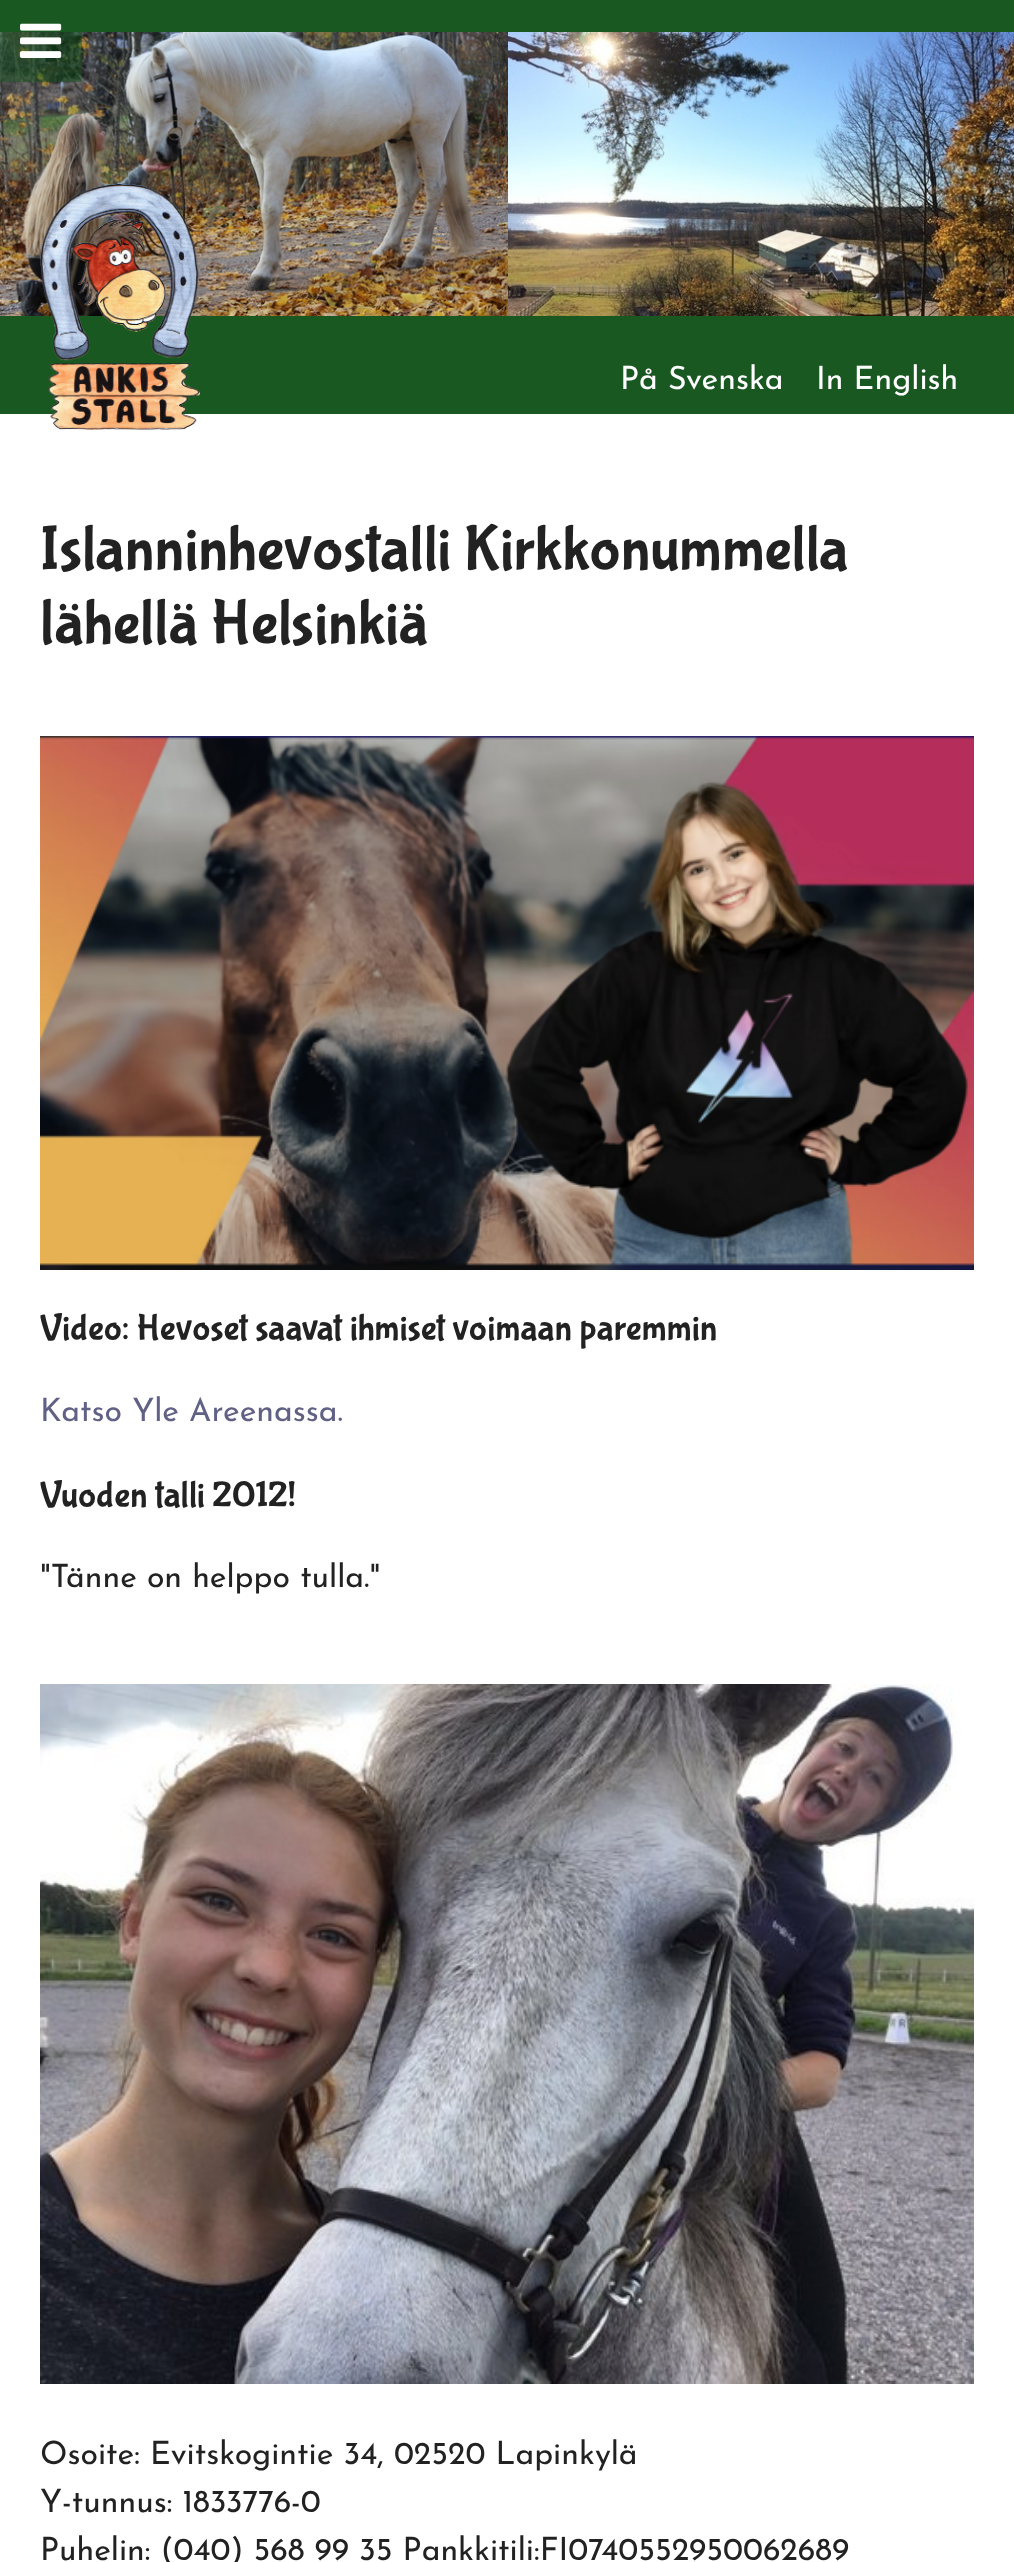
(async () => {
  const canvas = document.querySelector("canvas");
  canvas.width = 1014;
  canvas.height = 2562;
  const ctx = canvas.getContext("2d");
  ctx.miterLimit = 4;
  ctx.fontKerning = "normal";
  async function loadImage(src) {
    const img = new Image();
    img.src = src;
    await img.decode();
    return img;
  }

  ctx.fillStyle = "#ffffff";
  ctx.fillRect(0, 0, 1014, 2562);
  ctx.fillStyle = "#1a5822";
  ctx.fillRect(0, 0, 1014, 414);
  ctx.drawImage(await loadImage("img/1.png"), 0, 32, 508, 284);
  ctx.drawImage(await loadImage("img/2.png"), 508, 32, 506, 284);
  ctx.drawImage(await loadImage("img/3.png"), 40, 184, 160, 246);
  ctx.fillStyle = "rgba(26, 88, 34, 0.5)";
  ctx.fillRect(0, 32, 82, 50);
  ctx.drawImage(await loadImage("img/4.png"), 20, 23, 42, 35);
  ctx.drawImage(await loadImage("img/5.png"), 40, 736, 934, 534);
  ctx.drawImage(await loadImage("img/6.png"), 40, 1684, 934, 700);
  ctx.font = "32px Josefin Sans";
  ctx.fillStyle = "#ffffff";
  ctx.fillText("På Svenska", 620, 389);
  ctx.fillText("In English", 816, 389);
  ctx.font = "64px Bubblegum Sans";
  ctx.fillStyle = "#222222";
  ctx.fillText("Islanninhevostalli Kirkkonummella", 40, 568);
  ctx.fillText("lähellä Helsinkiä", 40, 642);
  ctx.font = "37.4px Bubblegum Sans";
  ctx.fillText("Video: Hevoset saavat ihmiset voimaan paremmin", 40, 1339);
  ctx.font = "32px Josefin Sans";
  ctx.fillStyle = "#616186";
  ctx.fillText("Katso Yle Areenassa.", 40, 1421);
  ctx.font = "37.4px Bubblegum Sans";
  ctx.fillStyle = "#222222";
  ctx.fillText("Vuoden talli 2012!", 40, 1506);
  ctx.font = "32px Josefin Sans";
  for (const [text, x, y] of [
    ["\"Tänne on helppo tulla.\"", 40, 1587],
    ["Osoite: Evitskogintie 34, 02520 Lapinkylä", 40, 2464],
    ["Y-tunnus: 1833776-0", 40, 2512],
    ["Puhelin: (040) 568 99 35 Pankkitili:FI0740552950062689", 40, 2560],
  ]) {
    ctx.fillText(text, x, y);
  }
})();
